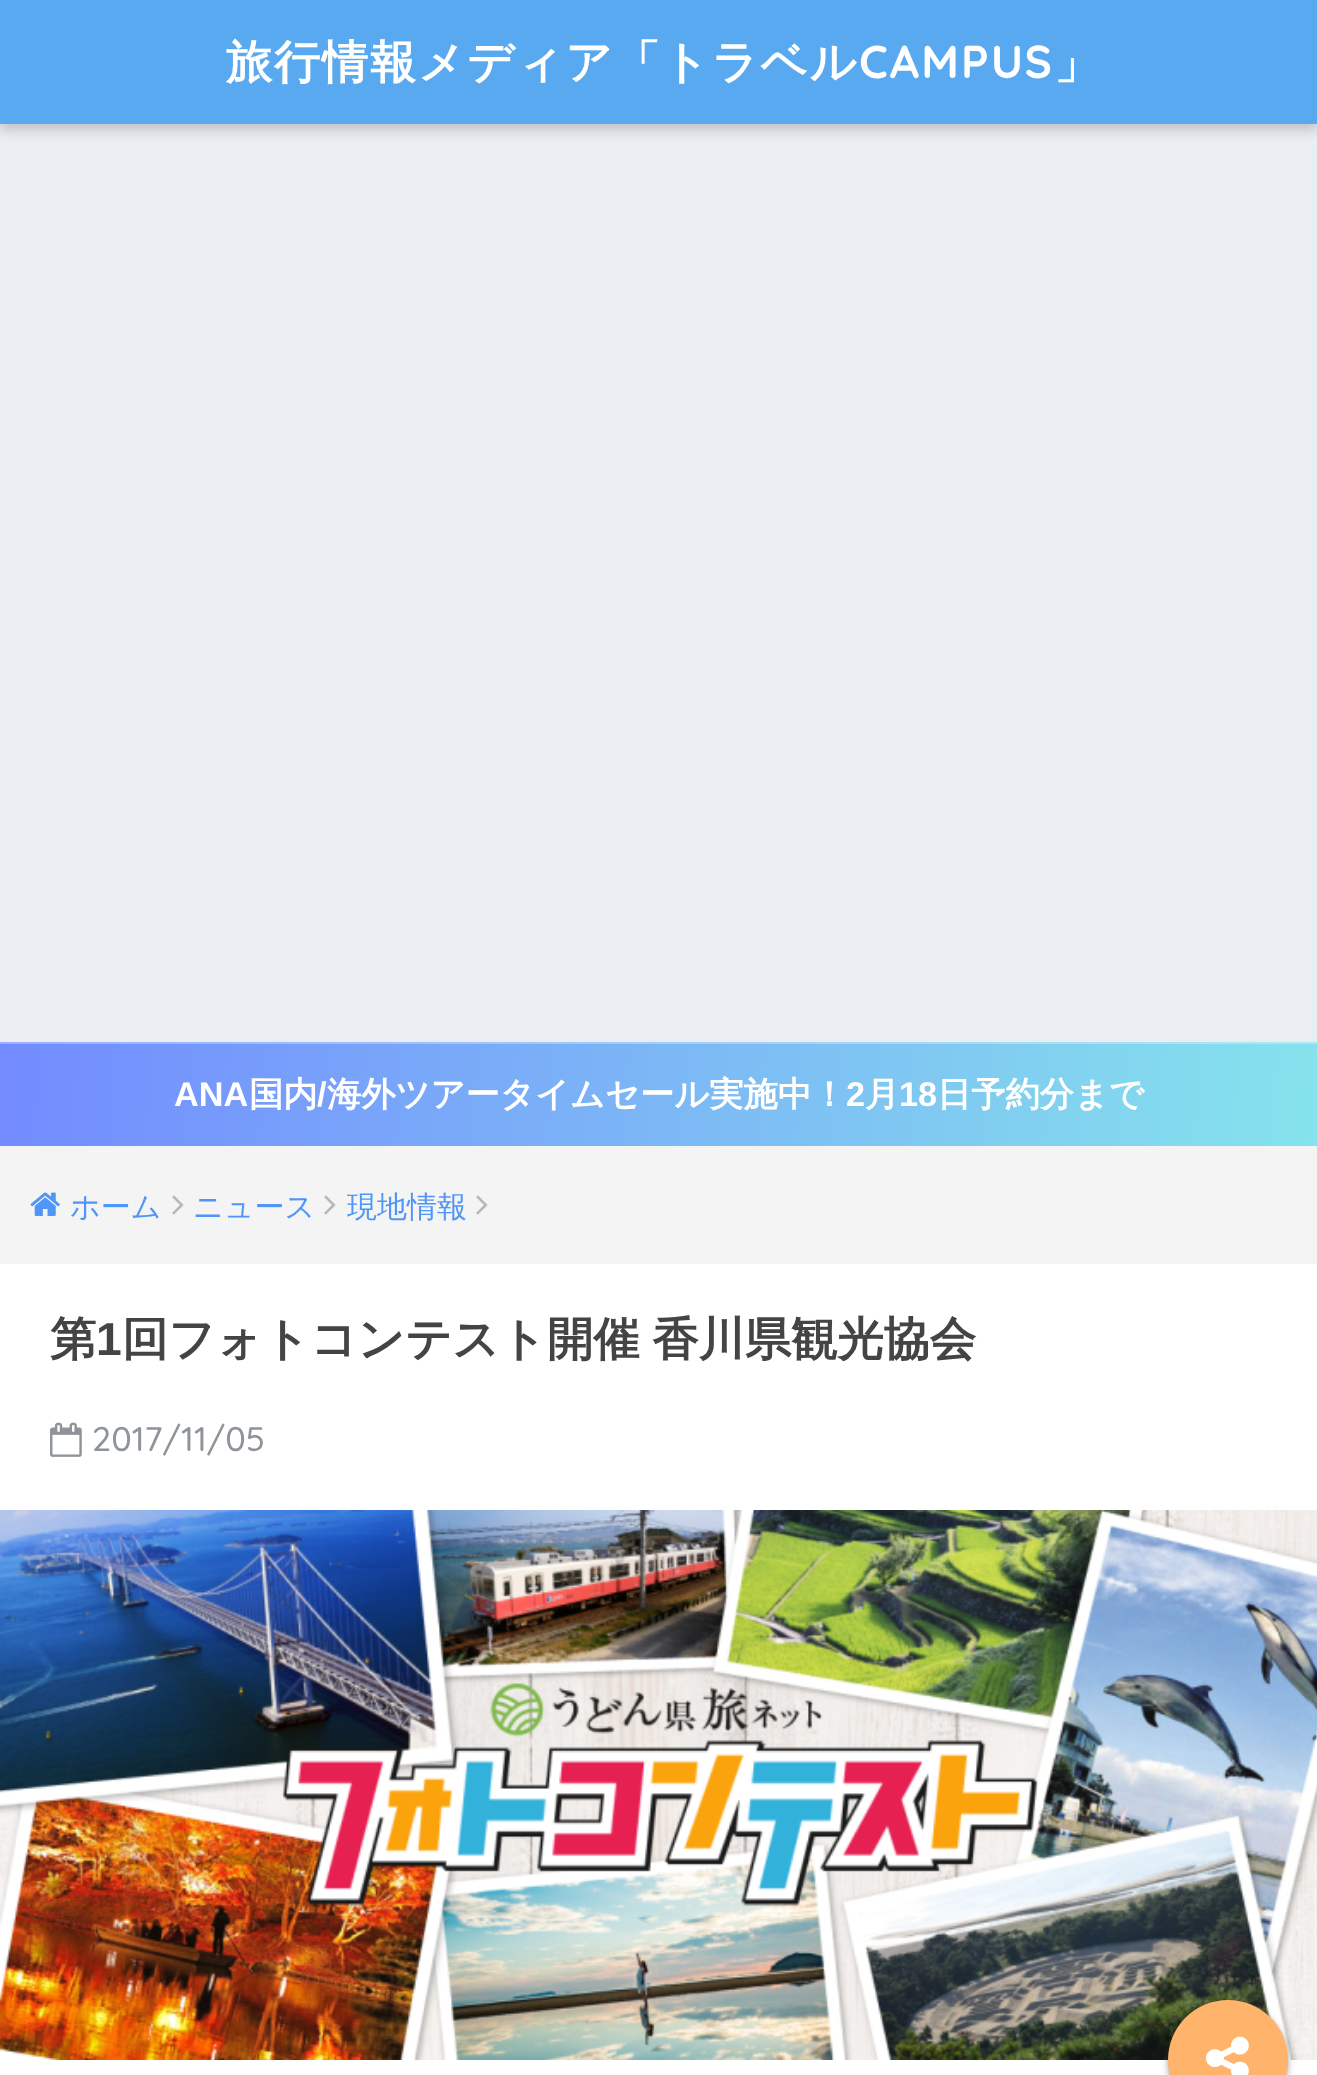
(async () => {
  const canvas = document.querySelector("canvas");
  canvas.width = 1317;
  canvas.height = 2075;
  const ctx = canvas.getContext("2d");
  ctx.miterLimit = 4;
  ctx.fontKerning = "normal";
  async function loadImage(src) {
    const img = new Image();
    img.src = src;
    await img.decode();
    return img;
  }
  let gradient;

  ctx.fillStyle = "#eaedf2";
  ctx.fillRect(0, 0, 1317, 2075);
  ctx.fillStyle = "rgba(0, 0, 0, 0.18)";
  ctx.filter = "blur(6px)";
  ctx.beginPath();
  ctx.rect(0, 6, 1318, 124);
  ctx.fill();
  ctx.filter = "none";
  ctx.fillStyle = "#58a9ef";
  ctx.fillRect(0, 0, 1317, 124);
  gradient = ctx.createLinearGradient(0.6, 935, 1317, 1051);
  gradient.addColorStop(0, "#9daeff");
  gradient.addColorStop(1, "#aaebf2");
  ctx.fillStyle = gradient;
  ctx.fillRect(0, 1042, 1317, 2);
  gradient = ctx.createLinearGradient(0.6, 1037, 1317, 1153);
  gradient.addColorStop(0, "#738bff");
  gradient.addColorStop(1, "#85e3ec");
  ctx.fillStyle = gradient;
  ctx.fillRect(0, 1044, 1317, 102);
  ctx.fillStyle = "#ffffff";
  ctx.fillRect(0, 1264, 1317, 811);
  ctx.fillStyle = "#f4f4f4";
  ctx.fillRect(0, 1146, 1317, 118);
  ctx.drawImage(await loadImage("img/1.png"), 30, 1192, 30, 24);
  ctx.drawImage(await loadImage("img/2.png"), 172, 1195, 12, 20);
  ctx.drawImage(await loadImage("img/2.png"), 324, 1195, 12, 20);
  ctx.drawImage(await loadImage("img/2.png"), 476, 1195, 12, 20);
  ctx.drawImage(await loadImage("img/3.png"), 50, 1422, 32, 35);
  ctx.drawImage(await loadImage("img/4.png"), 0, 1510, 1317, 550);
  ctx.fillStyle = "rgba(0, 0, 0, 0.2)";
  ctx.filter = "blur(2px)";
  ctx.beginPath();
  ctx.roundRect(1168, 2000, 120, 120, 60);
  ctx.fill();
  ctx.filter = "none";
  ctx.filter = "blur(4px)";
  ctx.beginPath();
  ctx.roundRect(1168, 2006, 120, 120, 60);
  ctx.fill();
  ctx.filter = "none";
  ctx.fillStyle = "#ffb36b";
  ctx.beginPath();
  ctx.arc(1228, 2060, 60, 0, Math.PI * 2);
  ctx.fill();
  ctx.drawImage(await loadImage("img/5.png"), 1206, 2036, 43, 39);
  ctx.letterSpacing = "2px";
  ctx.font = "bold 46px WenQuanYi Zen Hei";
  ctx.fillStyle = "#ffffff";
  ctx.fillText("旅行情報メディア「トラベル", 226, 78);
  ctx.font = "bold 46px Quicksand";
  ctx.fillText("CAMPUS", 859, 78);
  ctx.font = "bold 46px WenQuanYi Zen Hei";
  ctx.fillText("」", 1054, 78);
  ctx.letterSpacing = "0px";
  ctx.font = "bold 34.25px Liberation Sans";
  ctx.fillText("ANA", 174, 1106);
  ctx.font = "bold 34.25px WenQuanYi Zen Hei";
  ctx.fillText("国内", 249, 1106);
  ctx.font = "bold 34.25px Liberation Sans";
  ctx.fillText("/", 317, 1106);
  ctx.font = "bold 34.25px WenQuanYi Zen Hei";
  ctx.fillText("海外ツアータイムセール実施中！", 327, 1106);
  ctx.font = "bold 34.25px Liberation Sans";
  ctx.fillText("2", 846, 1106);
  ctx.font = "bold 34.25px WenQuanYi Zen Hei";
  ctx.fillText("月", 865, 1106);
  ctx.font = "bold 34.25px Liberation Sans";
  ctx.fillText("18", 899, 1106);
  ctx.font = "bold 34.25px WenQuanYi Zen Hei";
  ctx.fillText("日予約分まで", 937, 1106);
  ctx.font = "500 30px WenQuanYi Zen Hei";
  ctx.fillStyle = "#4f96f6";
  for (const [text, x, y] of [
    ["ホーム", 70, 1217],
    ["ニュース", 193, 1217],
    ["現地情報", 347, 1217],
  ]) {
    ctx.fillText(text, x, y);
  }
  ctx.font = "bold 46.25px WenQuanYi Zen Hei";
  ctx.fillStyle = "#444444";
  ctx.fillText("第", 50, 1355);
  ctx.font = "bold 46.25px Liberation Sans";
  ctx.fillText("1", 96, 1355);
  ctx.wordSpacing = "-1px";
  ctx.font = "bold 46.25px WenQuanYi Zen Hei";
  ctx.fillText("回フォトコンテスト開催 香川県観光協会", 122, 1355);
  ctx.wordSpacing = "0px";
  ctx.font = "500 34.25px Quicksand";
  ctx.fillStyle = "#8e949a";
  ctx.fillText("2017/11/05", 92, 1451);
})();
